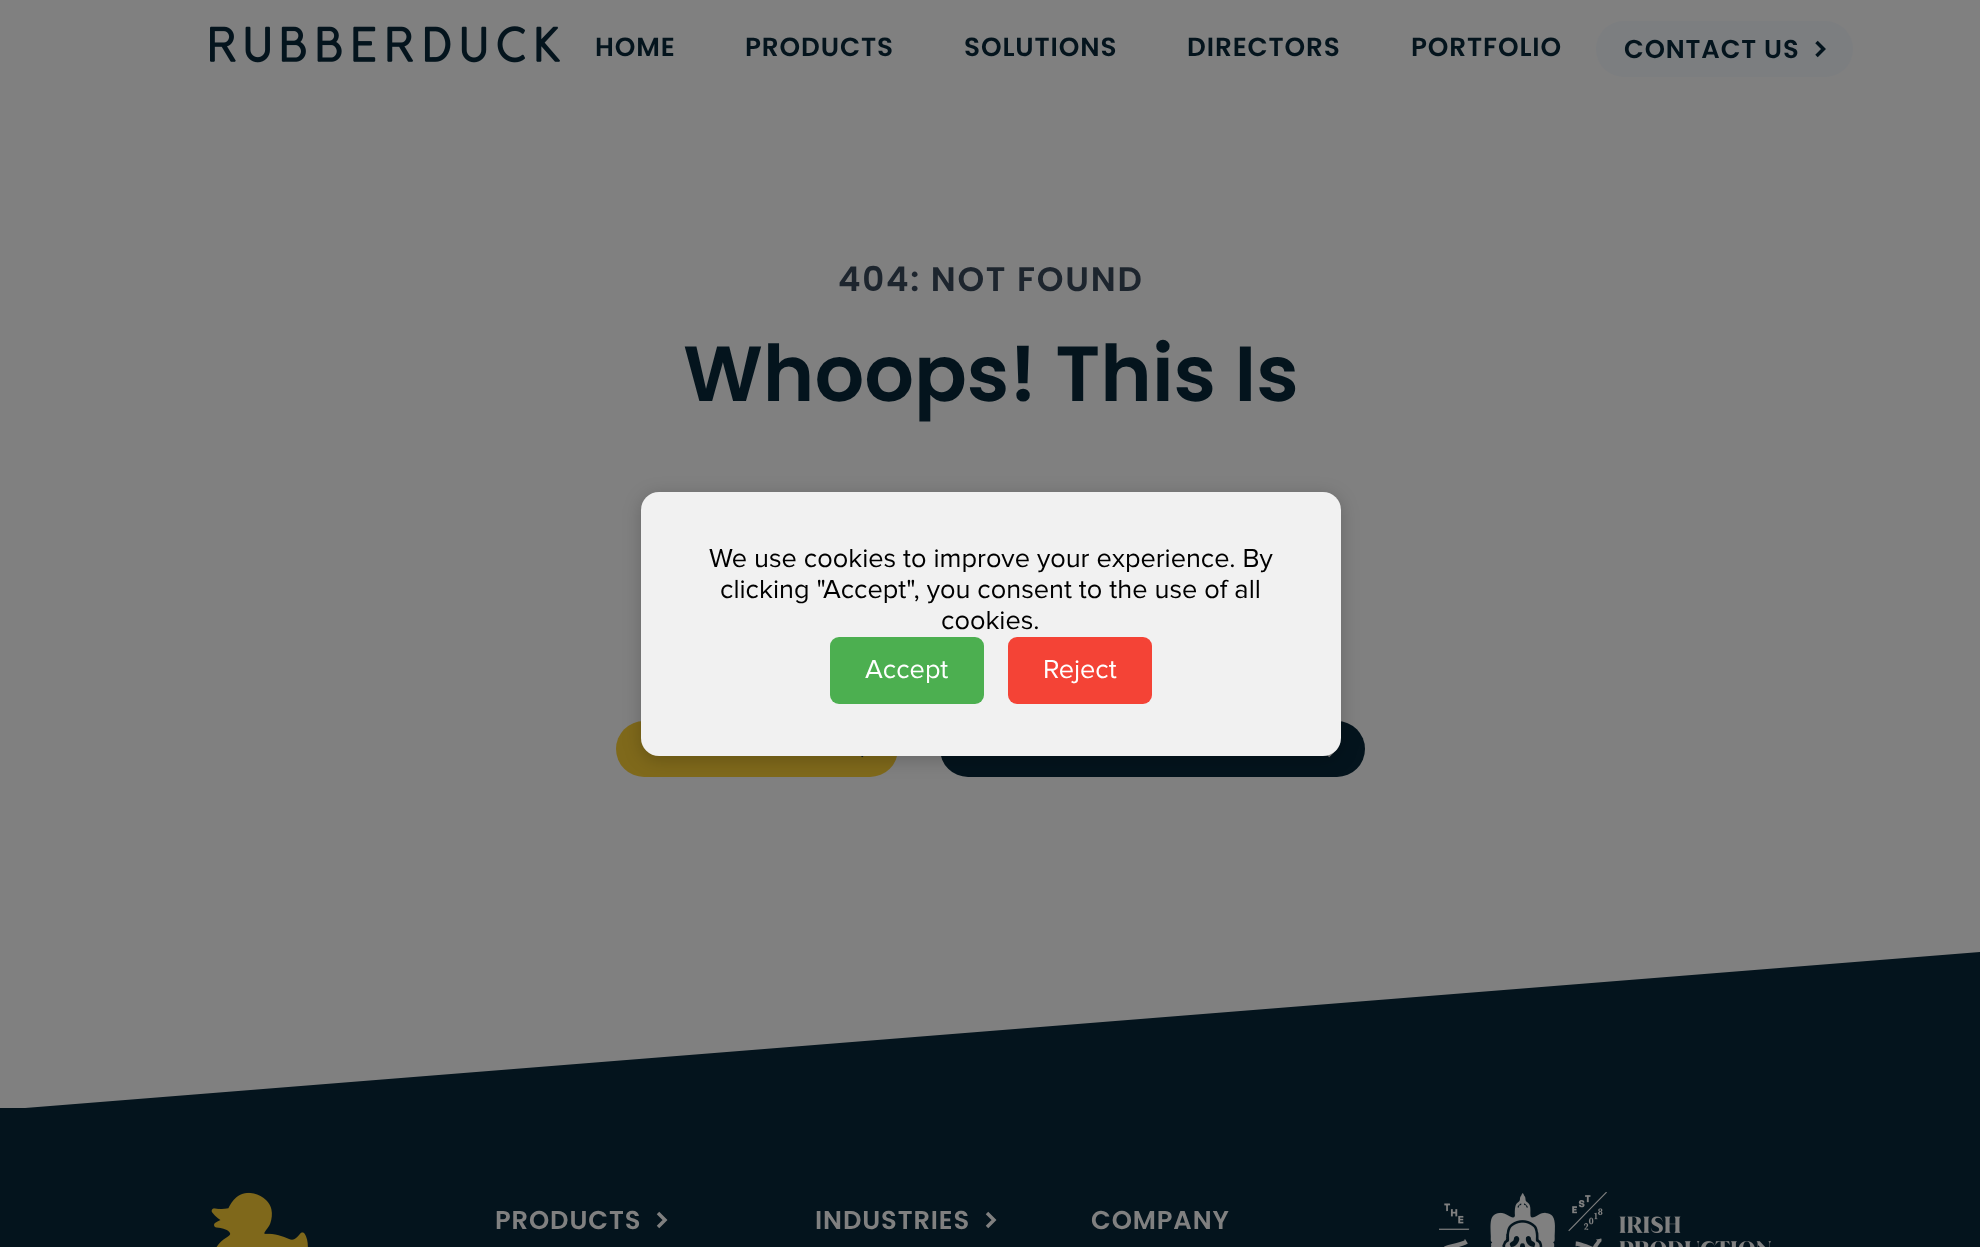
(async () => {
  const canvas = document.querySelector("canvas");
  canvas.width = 1980;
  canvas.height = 1247;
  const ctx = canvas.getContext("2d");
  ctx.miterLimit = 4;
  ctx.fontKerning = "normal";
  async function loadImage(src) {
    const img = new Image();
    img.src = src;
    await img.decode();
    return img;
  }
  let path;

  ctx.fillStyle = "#808080";
  ctx.fillRect(0, 0, 1980, 1247);
  ctx.drawImage(await loadImage("img/1.png"), 210, 26, 350, 37);
  ctx.fillStyle = "#7c7e80";
  ctx.beginPath();
  ctx.roundRect(1596, 21, 257, 56, 28);
  ctx.fill();
  path = new Path2D("M1816.5 42L1823.5 49L1816.5 56");
  ctx.strokeStyle = "#04141d";
  ctx.lineWidth = 3.5;
  ctx.stroke(path);
  ctx.fillStyle = "#7f691b";
  ctx.beginPath();
  ctx.roundRect(616, 721, 282, 56, 28);
  ctx.fill();
  path = new Path2D("M861 742L868 749L861 756");
  ctx.stroke(path);
  ctx.fillStyle = "#04141d";
  ctx.beginPath();
  ctx.roundRect(940, 721, 425, 56, 28);
  ctx.fill();
  path = new Path2D("M1328 742L1335 749L1328 756");
  ctx.strokeStyle = "#808080";
  ctx.stroke(path);
  ctx.fillRect(0, 1108, 1980, 139);
  path = new Path2D("M0 1110L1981 952V1110Z");
  ctx.fill(path);
  ctx.drawImage(await loadImage("img/2.png"), 211, 1192, 97, 55);
  path = new Path2D("M658 1213L665 1220L658 1227");
  ctx.stroke(path);
  path = new Path2D("M987 1213L994 1220L987 1227");
  ctx.stroke(path);
  ctx.drawImage(await loadImage("img/3.png"), 1439, 1192, 332, 55);
  ctx.fillStyle = "rgba(0, 0, 0, 0.2)";
  ctx.filter = "blur(9px)";
  ctx.beginPath();
  ctx.roundRect(641, 495, 700, 265, 18);
  ctx.fill();
  ctx.filter = "none";
  ctx.fillStyle = "#f1f1f1";
  ctx.beginPath();
  ctx.roundRect(641, 492, 700, 264, 18);
  ctx.fill();
  ctx.fillStyle = "#4caf50";
  ctx.beginPath();
  ctx.roundRect(830, 637, 154, 67, 9);
  ctx.fill();
  ctx.fillStyle = "#f44336";
  ctx.beginPath();
  ctx.roundRect(1008, 637, 144, 67, 9);
  ctx.fill();
  ctx.letterSpacing = "0.9px";
  ctx.font = "600 26.25px Poppins";
  ctx.fillStyle = "#04141d";
  for (const [text, x, y] of [
    ["HOME", 595, 56],
    ["PRODUCTS", 745, 56],
    ["SOLUTIONS", 964, 56],
    ["DIRECTORS", 1187, 56],
    ["PORTFOLIO", 1411, 56],
  ]) {
    ctx.fillText(text, x, y);
  }
  ctx.font = "600 25.75px Poppins";
  ctx.fillText("CONTACT US", 1624, 58);
  ctx.letterSpacing = "1.75px";
  ctx.font = "600 34px Poppins";
  ctx.fillStyle = "#1d252e";
  ctx.fillText("404: NOT FOUND", 838, 291);
  ctx.letterSpacing = "0px";
  ctx.font = "600 78px Poppins";
  ctx.fillStyle = "#04141d";
  ctx.fillText("Whoops! This Is", 683, 401);
  ctx.letterSpacing = "0.9px";
  ctx.font = "600 25.75px Poppins";
  ctx.fillStyle = "#808080";
  for (const [text, x, y] of [
    ["PRODUCTS", 495, 1229],
    ["INDUSTRIES", 815, 1229],
    ["COMPANY", 1091, 1229],
  ]) {
    ctx.fillText(text, x, y);
  }
  ctx.letterSpacing = "0px";
  ctx.font = "27.1px Proxima Nova";
  ctx.fillStyle = "#000000";
  for (const [text, x, y] of [
    ["We use cookies to improve your experience. By", 709, 567],
    ["clicking \"Accept\", you consent to the use of all", 720, 598],
    ["cookies.", 941, 629],
  ]) {
    ctx.fillText(text, x, y);
  }
  ctx.fillStyle = "#ffffff";
  ctx.fillText("Accept", 865, 678);
  ctx.fillText("Reject", 1043, 678);
})();
